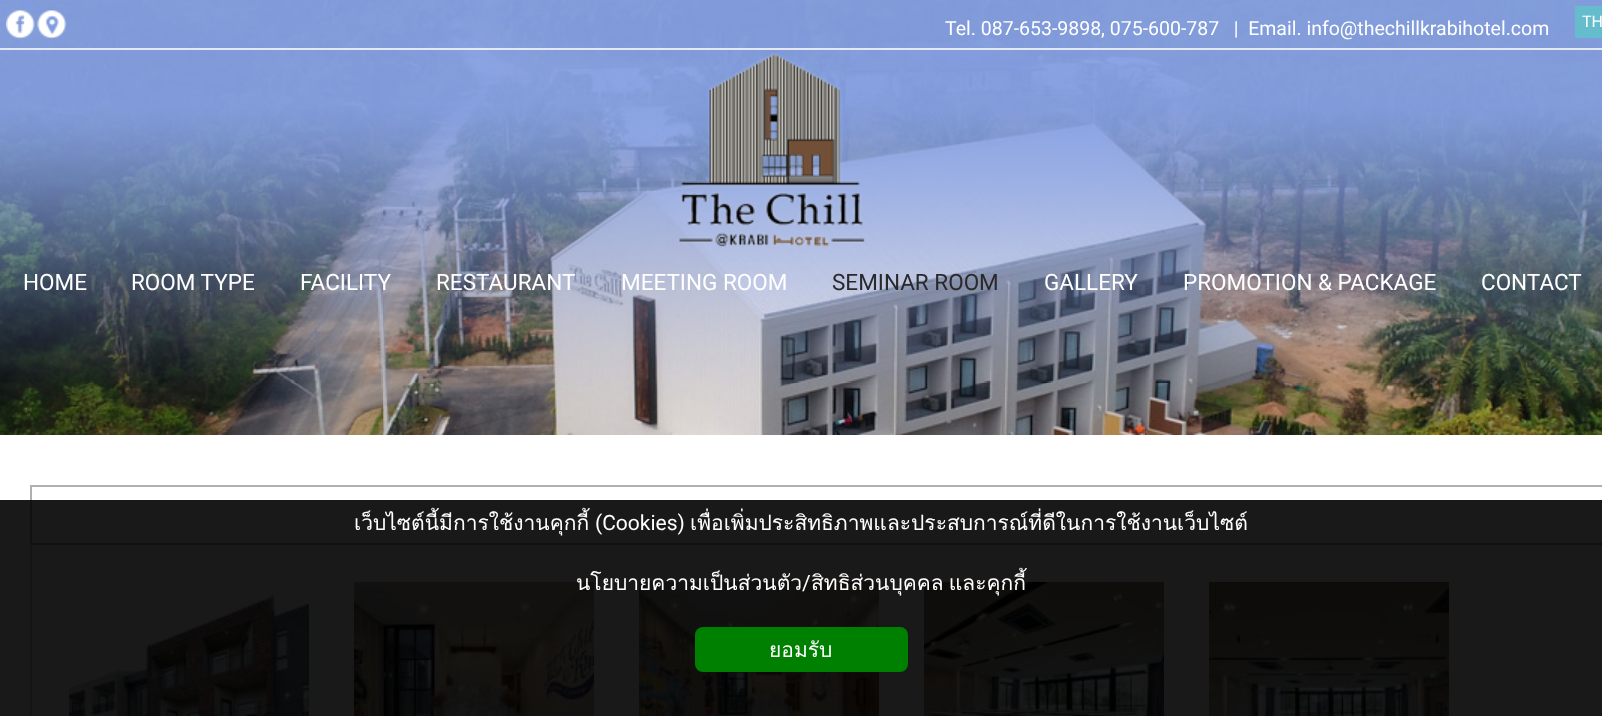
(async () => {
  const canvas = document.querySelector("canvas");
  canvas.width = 1602;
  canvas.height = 716;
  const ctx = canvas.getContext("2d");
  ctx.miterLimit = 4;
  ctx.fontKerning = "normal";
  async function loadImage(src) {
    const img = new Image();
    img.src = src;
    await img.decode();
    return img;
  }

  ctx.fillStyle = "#ffffff";
  ctx.fillRect(0, 0, 1602, 716);
  ctx.drawImage(await loadImage("img/1.png"), 0, 0, 1602, 435);
  ctx.fillStyle = "#e5e8ef";
  ctx.fillRect(0, 48, 1602, 2);
  ctx.drawImage(await loadImage("img/2.png"), 6, 10, 29, 29);
  ctx.drawImage(await loadImage("img/3.png"), 37, 10, 29, 29);
  ctx.fillStyle = "#65bccd";
  ctx.fillRect(1575, 6, 27, 32);
  ctx.drawImage(await loadImage("img/4.png"), 679, 53, 186, 194);
  ctx.strokeStyle = "#b0b0b0";
  ctx.lineWidth = 2;
  ctx.strokeRect(31, 486, 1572, 58);
  ctx.fillStyle = "#cccccc";
  ctx.fillRect(30, 545, 2, 171);
  ctx.drawImage(await loadImage("img/5.png"), 69, 593, 240, 123);
  ctx.drawImage(await loadImage("img/6.png"), 354, 582, 240, 134);
  ctx.drawImage(await loadImage("img/7.png"), 639, 582, 240, 134);
  ctx.drawImage(await loadImage("img/8.png"), 924, 582, 240, 134);
  ctx.drawImage(await loadImage("img/9.png"), 1209, 582, 240, 134);
  ctx.fillStyle = "rgba(0, 0, 0, 0.9)";
  ctx.fillRect(0, 500, 1602, 216);
  ctx.fillStyle = "#008000";
  ctx.beginPath();
  ctx.roundRect(695, 627, 213, 45, 8);
  ctx.fill();
  ctx.font = "19.5px Roboto";
  ctx.fillStyle = "#ffffff";
  ctx.fillText("Tel. 087-653-9898, 075-600-787   |  Email. info@thechillkrabihotel.com", 945, 35);
  ctx.font = "16px Roboto";
  ctx.fillText("TH", 1582, 27);
  ctx.font = "22.5px Roboto";
  for (const [text, x, y] of [
    ["HOME", 23, 290],
    ["ROOM TYPE", 131, 290],
    ["FACILITY", 300, 290],
    ["RESTAURANT", 436, 290],
    ["MEETING ROOM", 621, 290],
  ]) {
    ctx.fillText(text, x, y);
  }
  ctx.fillStyle = "#2a2929";
  ctx.fillText("SEMINAR ROOM", 832, 290);
  ctx.fillStyle = "#ffffff";
  for (const [text, x, y] of [
    ["GALLERY", 1044, 290],
    ["PROMOTION & PACKAGE", 1183, 290],
    ["CONTACT", 1481, 290],
  ]) {
    ctx.fillText(text, x, y);
  }
  ctx.font = "21px Loma";
  ctx.fillText("เว็บไซต์นี้มีการใช้งานคุกกี้", 354, 530);
  ctx.font = "21px Roboto";
  ctx.fillText("(Cookies)", 595, 530);
  ctx.font = "21px Loma";
  ctx.fillText("เพื่อเพิ่มประสิทธิภาพและประสบการณ์ที่ดีในการใช้งานเว็บไซต์", 690, 530);
  ctx.fillText("นโยบายความเป็นส่วนตัว", 576, 590);
  ctx.font = "21px Roboto";
  ctx.fillText("/", 802, 590);
  ctx.wordSpacing = "-2px";
  ctx.font = "21px Loma";
  ctx.fillText("สิทธิส่วนบุคคล และคุกกี้", 811, 590);
  ctx.wordSpacing = "0px";
  ctx.fillText("ยอมรับ", 769, 657);
})();
